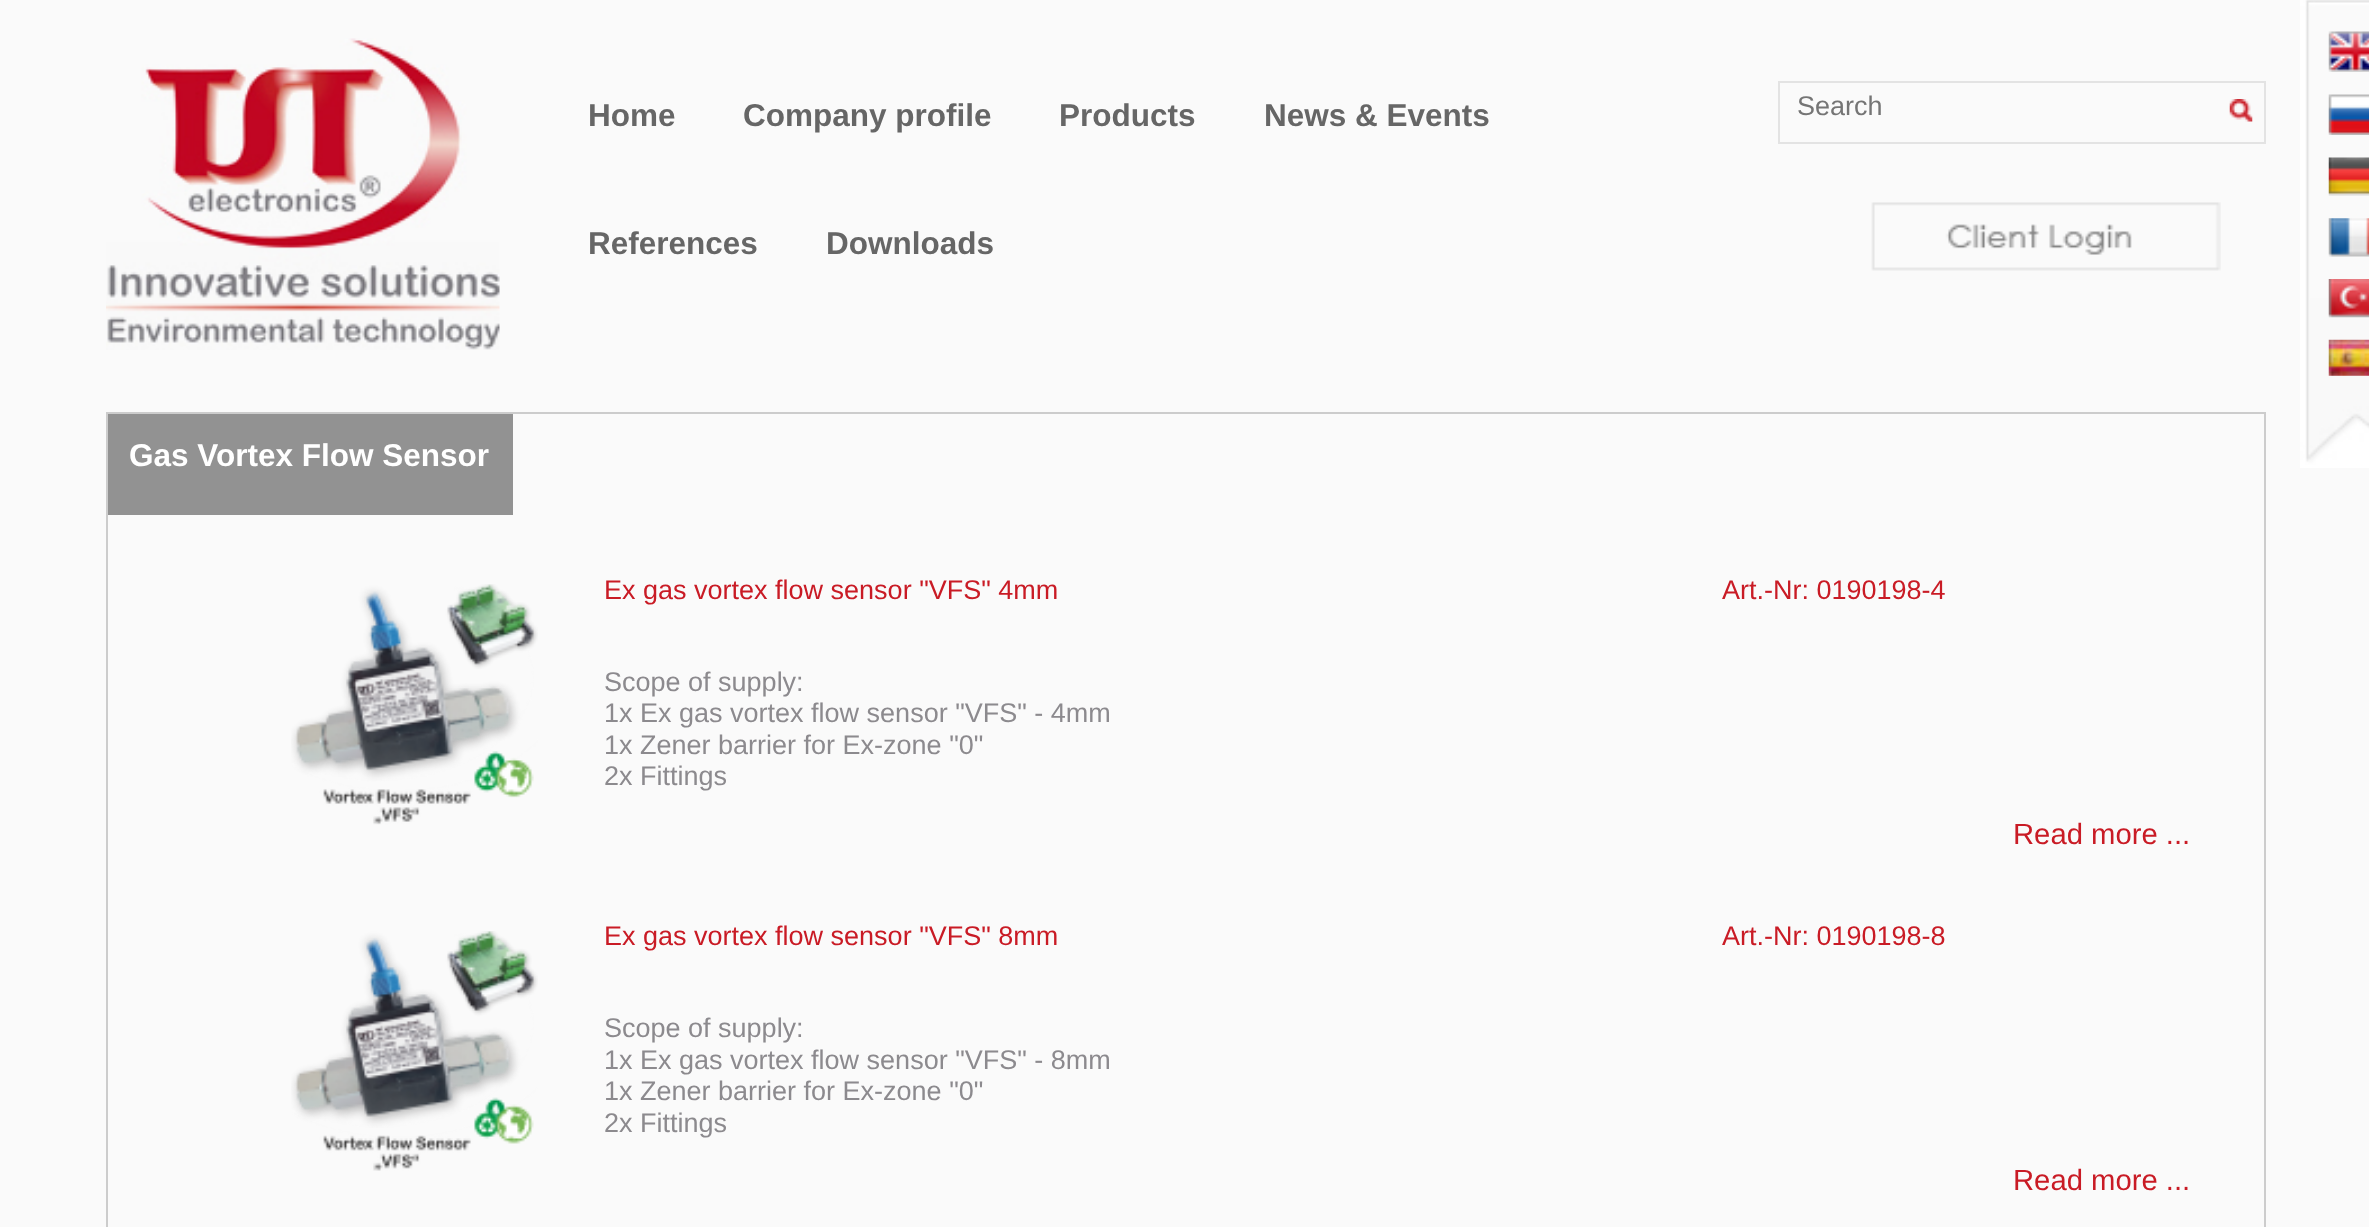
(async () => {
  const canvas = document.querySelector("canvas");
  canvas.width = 2369;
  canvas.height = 1227;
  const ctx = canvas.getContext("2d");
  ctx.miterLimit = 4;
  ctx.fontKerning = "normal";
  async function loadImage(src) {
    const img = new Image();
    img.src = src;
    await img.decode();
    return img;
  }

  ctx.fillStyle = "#fafafa";
  ctx.fillRect(0, 0, 2369, 1227);
  ctx.drawImage(await loadImage("img/1.png"), 106, 38, 394, 312);
  ctx.strokeStyle = "#e3e3e3";
  ctx.lineWidth = 2;
  ctx.strokeRect(1779, 82, 486, 61);
  ctx.drawImage(await loadImage("img/2.png"), 2229, 99, 24, 23);
  ctx.drawImage(await loadImage("img/3.png"), 2300, 0, 69, 468);
  ctx.drawImage(await loadImage("img/4.png"), 2328, 31, 41, 41);
  ctx.drawImage(await loadImage("img/5.png"), 2328, 94, 41, 41);
  ctx.drawImage(await loadImage("img/6.png"), 2328, 157, 41, 39);
  ctx.drawImage(await loadImage("img/7.png"), 2328, 218, 41, 39);
  ctx.drawImage(await loadImage("img/8.png"), 2328, 279, 41, 39);
  ctx.drawImage(await loadImage("img/9.png"), 2328, 339, 41, 37);
  ctx.drawImage(await loadImage("img/10.png"), 1871, 202, 350, 69);
  ctx.strokeStyle = "#cccccc";
  ctx.strokeRect(107, 413, 2158, 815);
  ctx.fillStyle = "#929292";
  ctx.fillRect(108, 414, 405, 101);
  ctx.drawImage(await loadImage("img/11.png"), 291, 584, 247, 241);
  ctx.drawImage(await loadImage("img/12.png"), 291, 931, 247, 240);
  ctx.font = "bold 31.5px Liberation Sans";
  ctx.fillStyle = "#666666";
  for (const [text, x, y] of [
    ["Home", 588, 126],
    ["Company profile", 743, 126],
    ["Products", 1059, 126],
    ["News & Events", 1264, 126],
  ]) {
    ctx.fillText(text, x, y);
  }
  ctx.font = "27px Liberation Sans";
  ctx.fillStyle = "#757575";
  ctx.fillText("Search", 1797, 115);
  ctx.font = "bold 31.5px Liberation Sans";
  ctx.fillStyle = "#666666";
  ctx.fillText("References", 588, 254);
  ctx.fillText("Downloads", 826, 254);
  ctx.fillStyle = "#ffffff";
  ctx.fillText("Gas Vortex Flow Sensor", 129, 466);
  ctx.font = "27px Liberation Sans";
  ctx.fillStyle = "#c91b25";
  ctx.fillText("Ex gas vortex flow sensor \"VFS\" 4mm", 604, 599);
  ctx.fillText("Art.-Nr: 0190198-4", 1722, 599);
  ctx.fillStyle = "#8c8a8e";
  for (const [text, x, y] of [
    ["Scope of supply:", 604, 691],
    ["1x Ex gas vortex flow sensor \"VFS\" - 4mm", 604, 722],
    ["1x Zener barrier for Ex-zone \"0\"", 604, 754],
    ["2x Fittings", 604, 785],
  ]) {
    ctx.fillText(text, x, y);
  }
  ctx.font = "29.25px Liberation Sans";
  ctx.fillStyle = "#c91b25";
  ctx.fillText("Read more ...", 2013, 844);
  ctx.font = "27px Liberation Sans";
  ctx.fillText("Ex gas vortex flow sensor \"VFS\" 8mm", 604, 945);
  ctx.fillText("Art.-Nr: 0190198-8", 1722, 945);
  ctx.fillStyle = "#8c8a8e";
  for (const [text, x, y] of [
    ["Scope of supply:", 604, 1037],
    ["1x Ex gas vortex flow sensor \"VFS\" - 8mm", 604, 1069],
    ["1x Zener barrier for Ex-zone \"0\"", 604, 1100],
    ["2x Fittings", 604, 1132],
  ]) {
    ctx.fillText(text, x, y);
  }
  ctx.font = "29.25px Liberation Sans";
  ctx.fillStyle = "#c91b25";
  ctx.fillText("Read more ...", 2013, 1190);
})();
